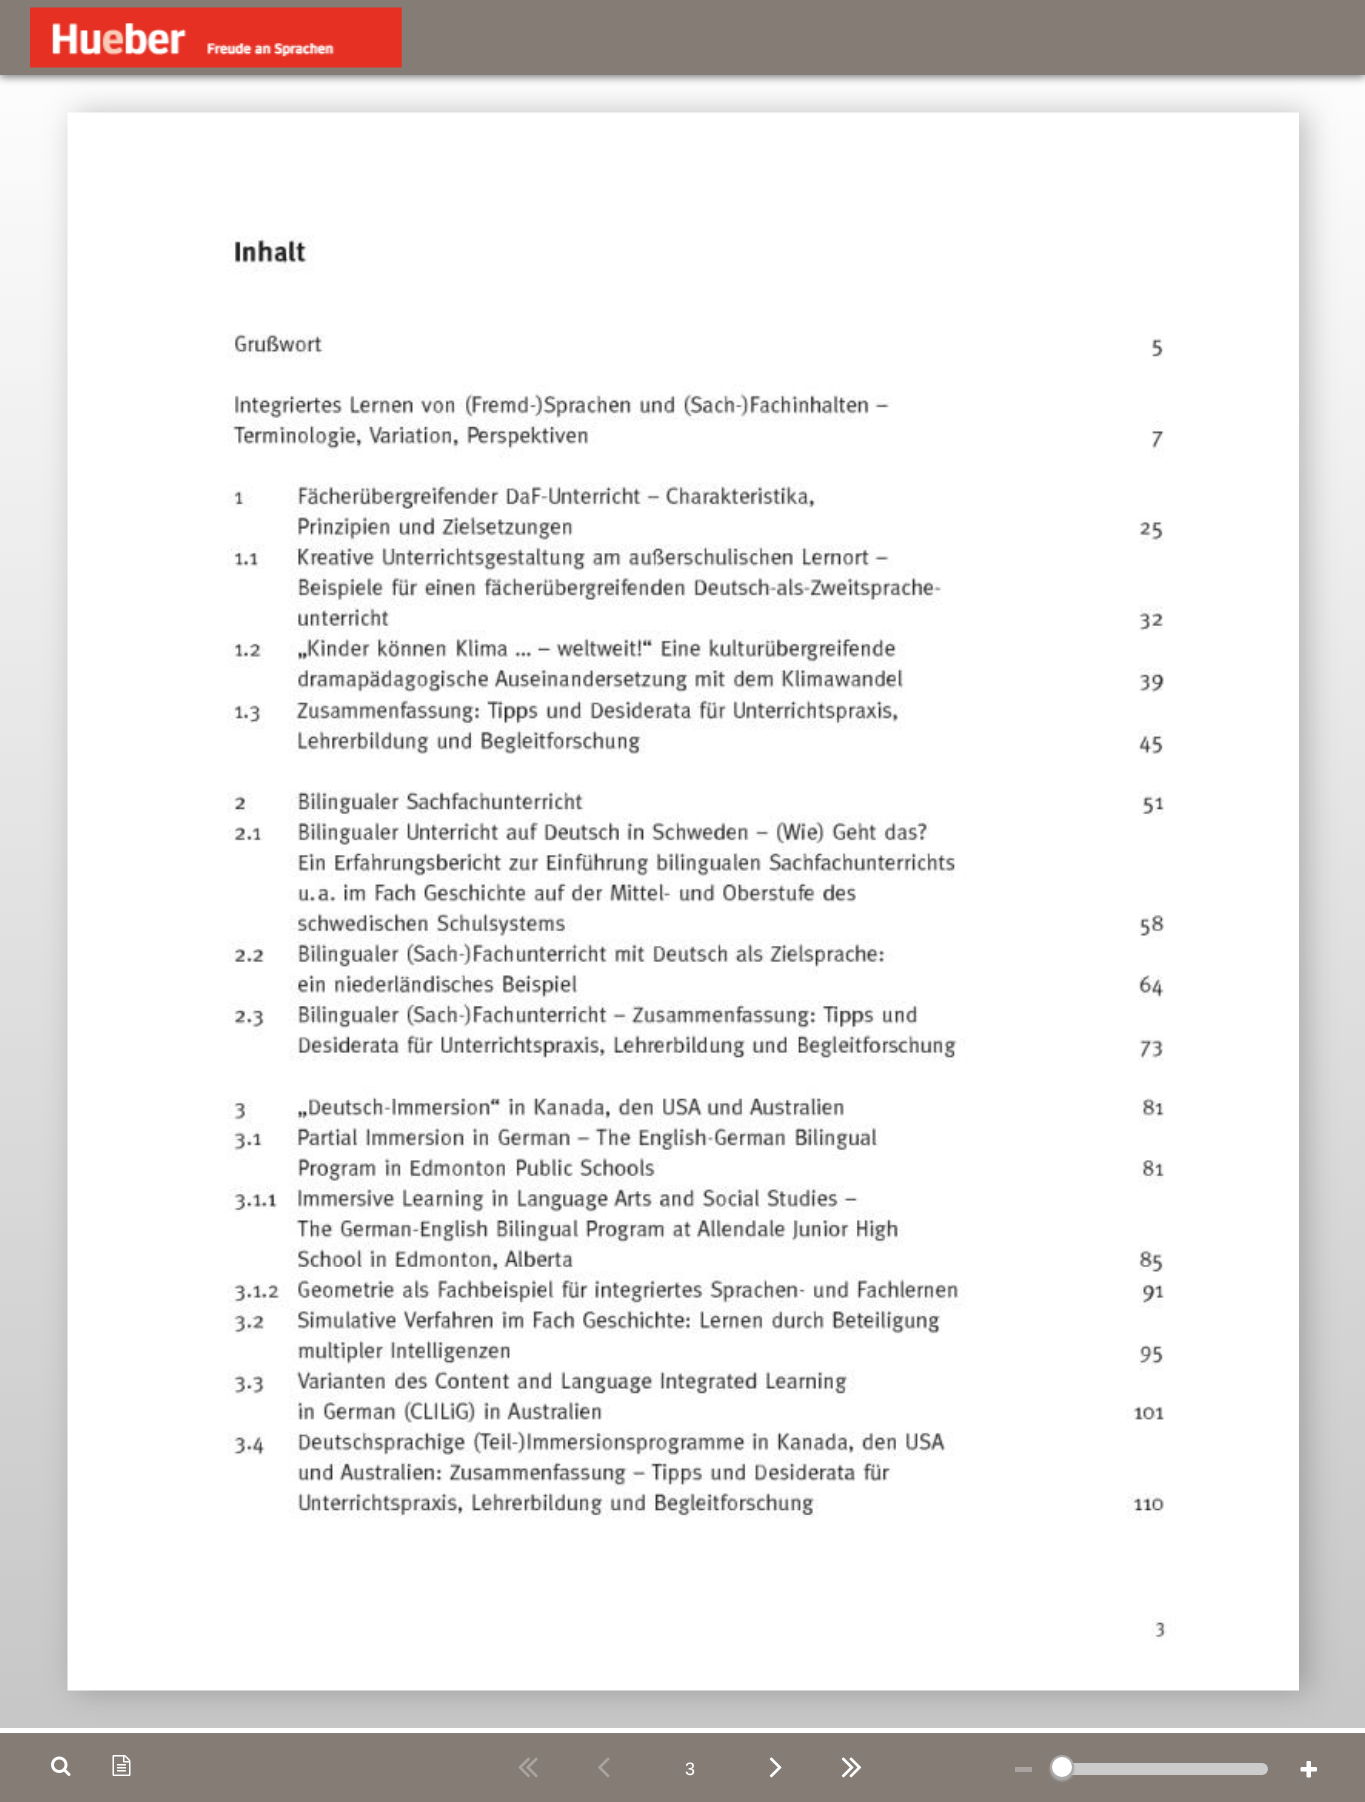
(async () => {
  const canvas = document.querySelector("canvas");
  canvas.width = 1365;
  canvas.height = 1802;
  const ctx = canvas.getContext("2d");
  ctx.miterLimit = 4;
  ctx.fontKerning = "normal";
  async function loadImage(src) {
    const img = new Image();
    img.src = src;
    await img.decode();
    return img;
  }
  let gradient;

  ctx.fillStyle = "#ffffff";
  ctx.fillRect(0, 0, 1365, 1802);
  gradient = ctx.createLinearGradient(682, 0, 683, 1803);
  gradient.addColorStop(0, "#ffffff");
  gradient.addColorStop(1, "#c4c4c4");
  ctx.fillStyle = gradient;
  ctx.fillRect(0, 76, 1365, 1652);
  ctx.fillStyle = "#777777";
  ctx.filter = "blur(4px)";
  ctx.beginPath();
  ctx.rect(0, 2, 1365, 75);
  ctx.fill();
  ctx.filter = "none";
  ctx.fillStyle = "rgba(50, 50, 50, 0.3)";
  ctx.filter = "blur(15px)";
  ctx.beginPath();
  ctx.rect(75, 113, 1232, 1578);
  ctx.fill();
  ctx.filter = "none";
  ctx.fillStyle = "#857c76";
  ctx.fillRect(0, 0, 1365, 75);
  ctx.drawImage(await loadImage("img/1.png"), 30, 7, 372, 61);
  ctx.drawImage(await loadImage("img/2.png"), 67, 112, 1232, 1579);
  ctx.fillRect(0, 1733, 1365, 69);
  ctx.drawImage(await loadImage("img/3.png"), 51, 1756, 20, 20);
  ctx.drawImage(await loadImage("img/4.png"), 112, 1755, 19, 21);
  ctx.drawImage(await loadImage("img/5.png"), 518, 1757, 20, 21);
  ctx.drawImage(await loadImage("img/6.png"), 598, 1757, 12, 21);
  ctx.drawImage(await loadImage("img/7.png"), 769, 1757, 13, 21);
  ctx.drawImage(await loadImage("img/8.png"), 841, 1757, 21, 21);
  ctx.fillStyle = "#aaa39f";
  ctx.fillRect(1015, 1767, 17, 5);
  ctx.fillStyle = "#cccccc";
  ctx.beginPath();
  ctx.roundRect(1065, 1763, 203, 12, 6);
  ctx.fill();
  ctx.fillStyle = "#aaaaaa";
  ctx.filter = "blur(1px)";
  ctx.beginPath();
  ctx.roundRect(1050, 1757, 24, 24, 12);
  ctx.fill();
  ctx.filter = "none";
  ctx.fillStyle = "#ffffff";
  ctx.beginPath();
  ctx.arc(1062, 1767, 11, 0, Math.PI * 2);
  ctx.fill();
  ctx.strokeStyle = "#aaaaaa";
  ctx.lineWidth = 2;
  ctx.stroke();
  ctx.drawImage(await loadImage("img/9.png"), 1300, 1761, 17, 17);
  ctx.font = "18px Liberation Sans";
  ctx.fillText("3", 685, 1775);
})();
